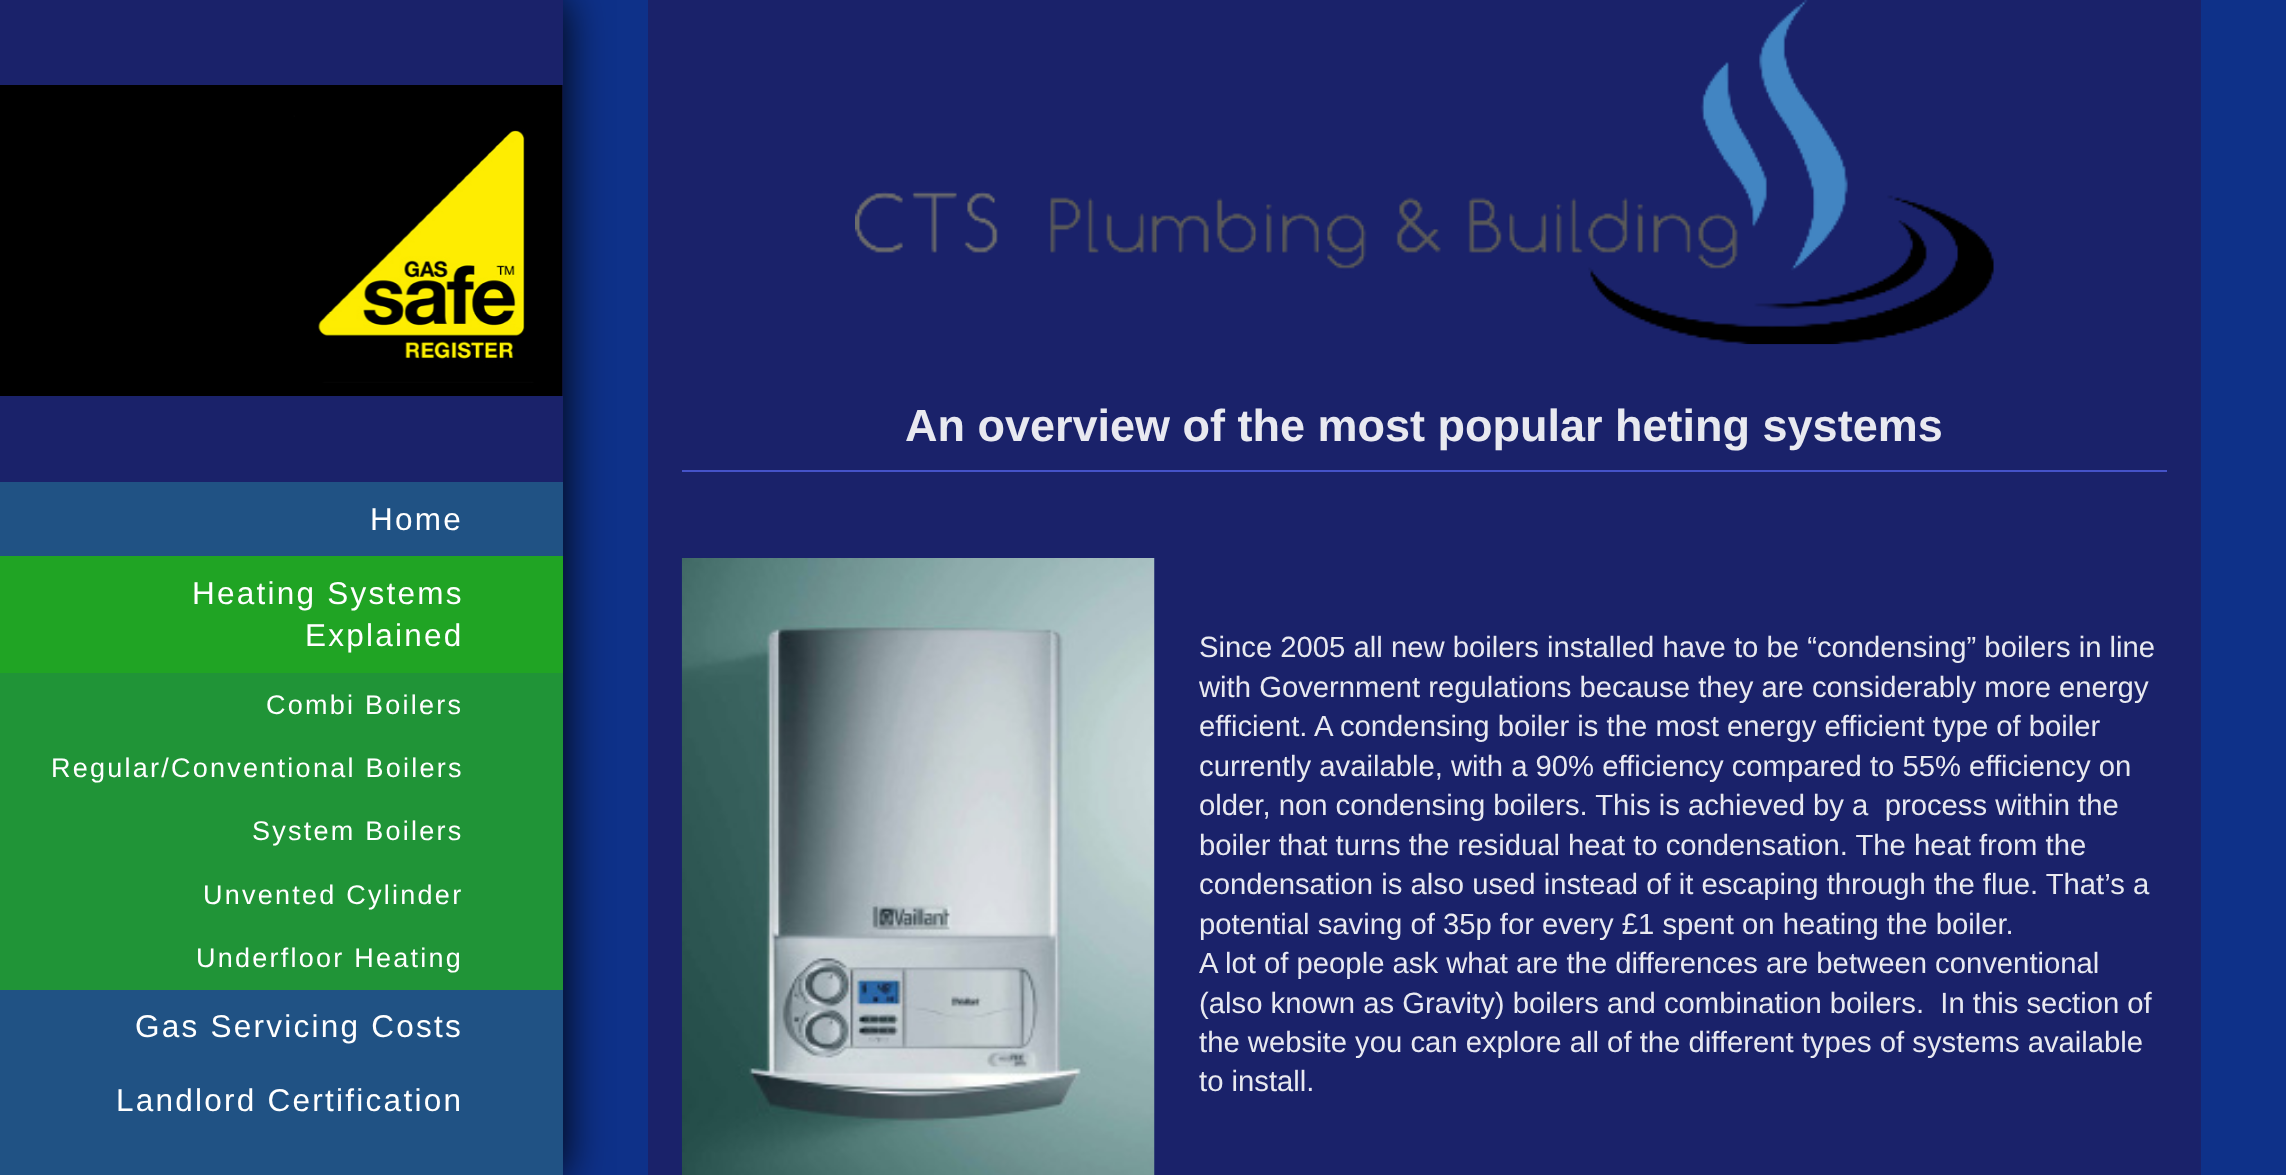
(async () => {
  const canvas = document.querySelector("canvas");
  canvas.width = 2286;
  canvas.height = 1175;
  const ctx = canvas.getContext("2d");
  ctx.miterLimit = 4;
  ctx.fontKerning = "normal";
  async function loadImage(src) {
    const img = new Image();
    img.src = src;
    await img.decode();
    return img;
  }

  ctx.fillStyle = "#0e3189";
  ctx.fillRect(0, 0, 2286, 1175);
  ctx.fillStyle = "#000000";
  ctx.filter = "blur(22.5px)";
  ctx.beginPath();
  ctx.rect(0, 0, 563, 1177);
  ctx.fill();
  ctx.filter = "none";
  ctx.fillStyle = "#1a226a";
  ctx.fillRect(648, 0, 1553, 1175);
  ctx.drawImage(await loadImage("img/1.png"), 855, 0, 1139, 345);
  ctx.fillStyle = "#4553c8";
  ctx.fillRect(682, 470, 1485, 2);
  ctx.drawImage(await loadImage("img/2.png"), 681, 558, 474, 617);
  ctx.fillStyle = "#1a226a";
  ctx.fillRect(0, 0, 563, 482);
  ctx.drawImage(await loadImage("img/3.png"), 0, 85, 563, 311);
  for (const [x, y, w, h, color] of [
    [0, 482, 563, 693, "#205284"],
    [0, 556, 563, 117, "#20a424"],
    [0, 673, 563, 317, "#209437"],
  ]) {
    ctx.fillStyle = color;
    ctx.fillRect(x, y, w, h);
  }
  ctx.font = "bold 45px Liberation Sans";
  ctx.fillStyle = "#e8e9f0";
  ctx.fillText("An overview of the most popular heting systems", 905, 441);
  ctx.font = "29.25px Liberation Sans";
  for (const [text, x, y] of [
    ["Since 2005 all new boilers installed have to be “condensing” boilers in line", 1199, 657],
    ["with Government regulations because they are considerably more energy", 1199, 697],
    ["efficient. A condensing boiler is the most energy efficient type of boiler", 1199, 736],
    ["currently available, with a 90% efficiency compared to 55% efficiency on", 1199, 776],
    ["older, non condensing boilers. This is achieved by a  process within the", 1199, 815],
    ["boiler that turns the residual heat to condensation. The heat from the", 1199, 855],
    ["condensation is also used instead of it escaping through the flue. That’s a", 1199, 894],
    ["potential saving of 35p for every £1 spent on heating the boiler.", 1199, 934],
    ["A lot of people ask what are the differences are between conventional", 1199, 973],
    ["(also known as Gravity) boilers and combination boilers.  In this section of", 1199, 1013],
    ["the website you can explore all of the different types of systems available", 1199, 1052],
    ["to install.", 1199, 1091],
  ]) {
    ctx.fillText(text, x, y);
  }
  ctx.letterSpacing = "2.25px";
  ctx.font = "31.5px Liberation Sans";
  ctx.fillStyle = "#ffffff";
  for (const [text, x, y] of [
    ["Home", 370, 530],
    ["Heating Systems", 192, 604],
    ["Explained", 305, 646],
  ]) {
    ctx.fillText(text, x, y);
  }
  ctx.font = "27px Liberation Sans";
  for (const [text, x, y] of [
    ["Combi Boilers", 266, 714],
    ["Regular/Conventional Boilers", 51, 777],
    ["System Boilers", 252, 840],
    ["Unvented Cylinder", 203, 904],
    ["Underfloor Heating", 196, 967],
  ]) {
    ctx.fillText(text, x, y);
  }
  ctx.font = "31.5px Liberation Sans";
  ctx.fillText("Gas Servicing Costs", 135, 1037);
  ctx.fillText("Landlord Certification", 116, 1111);
})();
